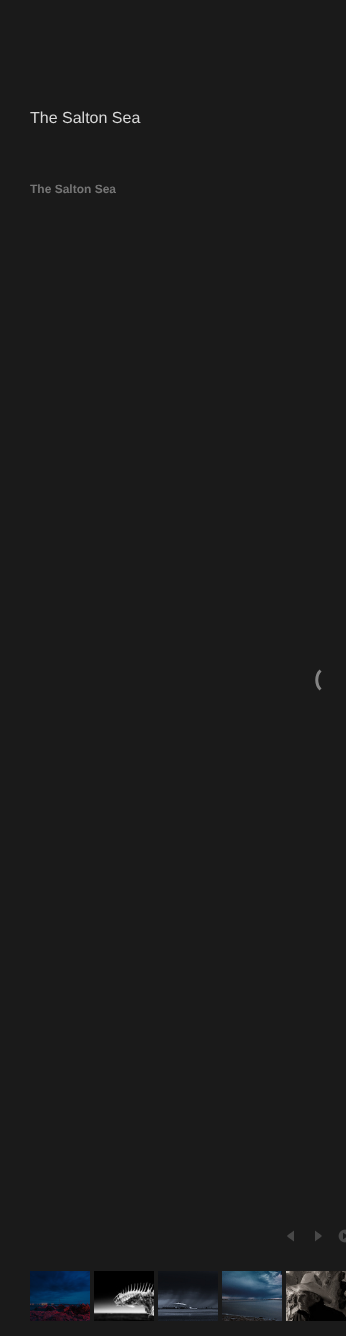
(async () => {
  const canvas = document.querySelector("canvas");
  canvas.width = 346;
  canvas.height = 1336;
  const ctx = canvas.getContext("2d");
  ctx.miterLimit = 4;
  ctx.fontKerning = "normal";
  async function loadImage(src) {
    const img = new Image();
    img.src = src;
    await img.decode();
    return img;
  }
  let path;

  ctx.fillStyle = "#1a1a1a";
  ctx.fillRect(0, 0, 346, 1336);
  path = new Path2D("M320.5 689.5C315.5 684.5 315.5 675.5 320.5 670.5");
  ctx.strokeStyle = "#848484";
  ctx.lineWidth = 3;
  ctx.stroke(path);
  ctx.fillStyle = "#484848";
  path = new Path2D("M294 1241.5C285 1234.5 285 1237.5 294 1230.5ZM315 1230.5C324 1237.5 324 1234.5 315 1241.5Z");
  ctx.fill(path);
  ctx.drawImage(await loadImage("img/1.png"), 338, 1229, 8, 14);
  ctx.drawImage(await loadImage("img/2.png"), 30, 1271, 60, 50);
  ctx.drawImage(await loadImage("img/3.png"), 94, 1271, 60, 50);
  ctx.drawImage(await loadImage("img/4.png"), 158, 1271, 60, 50);
  ctx.drawImage(await loadImage("img/5.png"), 222, 1271, 60, 50);
  ctx.drawImage(await loadImage("img/6.png"), 286, 1271, 60, 50);
  ctx.font = "16px Liberation Sans";
  ctx.fillStyle = "#d9d9d9";
  ctx.fillText("The Salton Sea", 30, 123);
  ctx.font = "bold 12px Liberation Sans";
  ctx.fillStyle = "#757575";
  ctx.fillText("The Salton Sea", 30, 193);
})();
